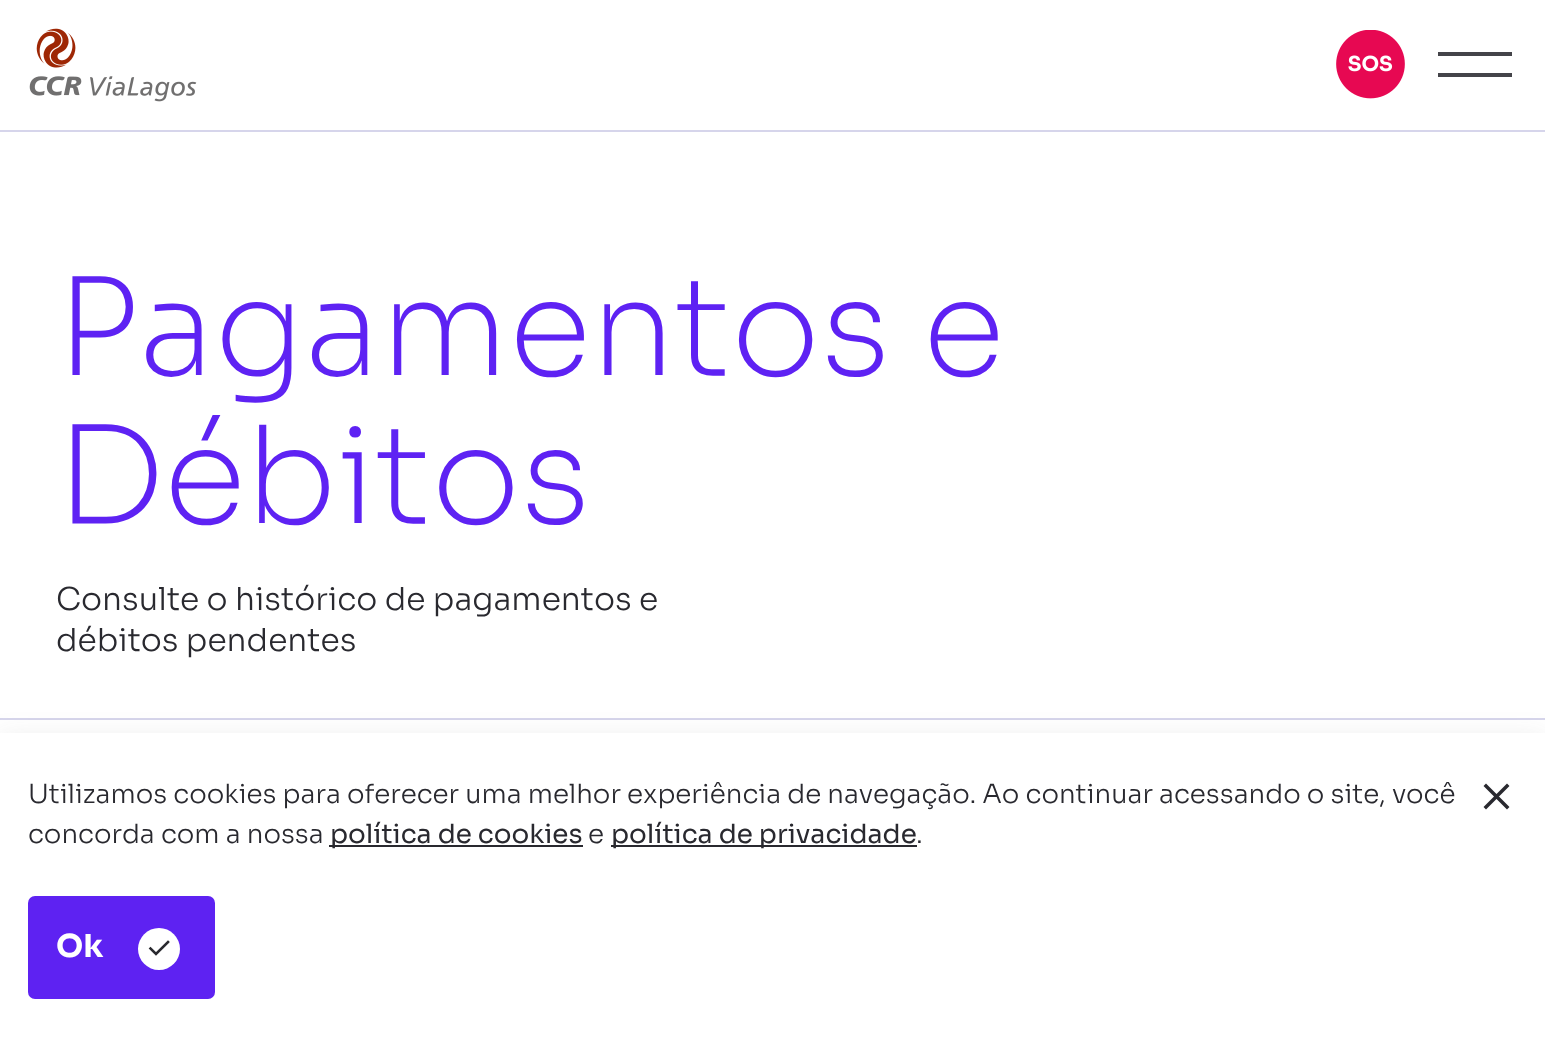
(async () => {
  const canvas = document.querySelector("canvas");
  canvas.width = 1545;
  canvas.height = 1041;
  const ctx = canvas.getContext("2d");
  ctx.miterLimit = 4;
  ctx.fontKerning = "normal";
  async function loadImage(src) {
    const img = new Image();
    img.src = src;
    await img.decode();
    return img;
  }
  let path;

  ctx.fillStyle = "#ffffff";
  ctx.fillRect(0, 0, 1545, 1041);
  ctx.fillStyle = "#d6d5eb";
  ctx.fillRect(0, 130, 1545, 2);
  ctx.drawImage(await loadImage("img/1.png"), 29, 28, 168, 74);
  ctx.drawImage(await loadImage("img/2.png"), 1336, 30, 69, 69);
  for (const [x, y, w, h, color] of [
    [1438, 52, 74, 4, "#444449"],
    [1438, 73, 74, 4, "#444449"],
    [0, 718, 1545, 2, "#d6d5eb"],
  ]) {
    ctx.fillStyle = color;
    ctx.fillRect(x, y, w, h);
  }
  ctx.fillStyle = "rgba(102, 102, 102, 0.16)";
  ctx.filter = "blur(14px)";
  ctx.beginPath();
  ctx.rect(0, 740, 1545, 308);
  ctx.fill();
  ctx.filter = "none";
  for (const [x, y, w, h, color] of [
    [0, 733, 1545, 308, "#ffffff"],
    [329, 845, 254, 2, "#29292f"],
    [611, 845, 306, 2, "#29292f"],
  ]) {
    ctx.fillStyle = color;
    ctx.fillRect(x, y, w, h);
  }
  ctx.fillStyle = "#5e22f2";
  ctx.beginPath();
  ctx.roundRect(28, 896, 187, 103, 7);
  ctx.fill();
  ctx.fillStyle = "#ffffff";
  ctx.beginPath();
  ctx.arc(159, 949, 21, 0, Math.PI * 2);
  ctx.fill();
  path = new Path2D("M168 942L156 954L150.5 948.5");
  ctx.strokeStyle = "#29292f";
  ctx.lineWidth = 2.6;
  ctx.lineCap = "square";
  ctx.stroke(path);
  path = new Path2D("M1507 786L1486 807M1486 786L1507 807");
  ctx.lineWidth = 3.5;
  ctx.stroke(path);
  ctx.font = "200 134.75px Sora";
  ctx.fillStyle = "#5e22f3";
  ctx.fillText("Pagamentos e", 56, 375);
  ctx.fillText("Débitos", 56, 523);
  ctx.font = "300 31.5px Sora";
  ctx.fillStyle = "#29292f";
  ctx.fillText("Consulte o histórico de pagamentos e", 56, 610);
  ctx.fillText("débitos pendentes", 56, 651);
  ctx.font = "300 26.25px Sora";
  ctx.fillText("Utilizamos cookies para oferecer uma melhor experiência de navegação. Ao continuar acessando o site, você", 28, 803);
  ctx.fillText("concorda com a nossa", 28, 843);
  ctx.font = "26.25px Sora";
  ctx.fillText("política de cookies", 330, 843);
  ctx.font = "300 26.25px Sora";
  ctx.fillText("e", 588, 843);
  ctx.font = "26.25px Sora";
  ctx.fillText("política de privacidade", 611, 843);
  ctx.font = "300 26.25px Sora";
  ctx.fillText(".", 916, 843);
  ctx.font = "bold 31.5px Sora";
  ctx.fillStyle = "#ffffff";
  ctx.fillText("Ok", 56, 957);
})();
